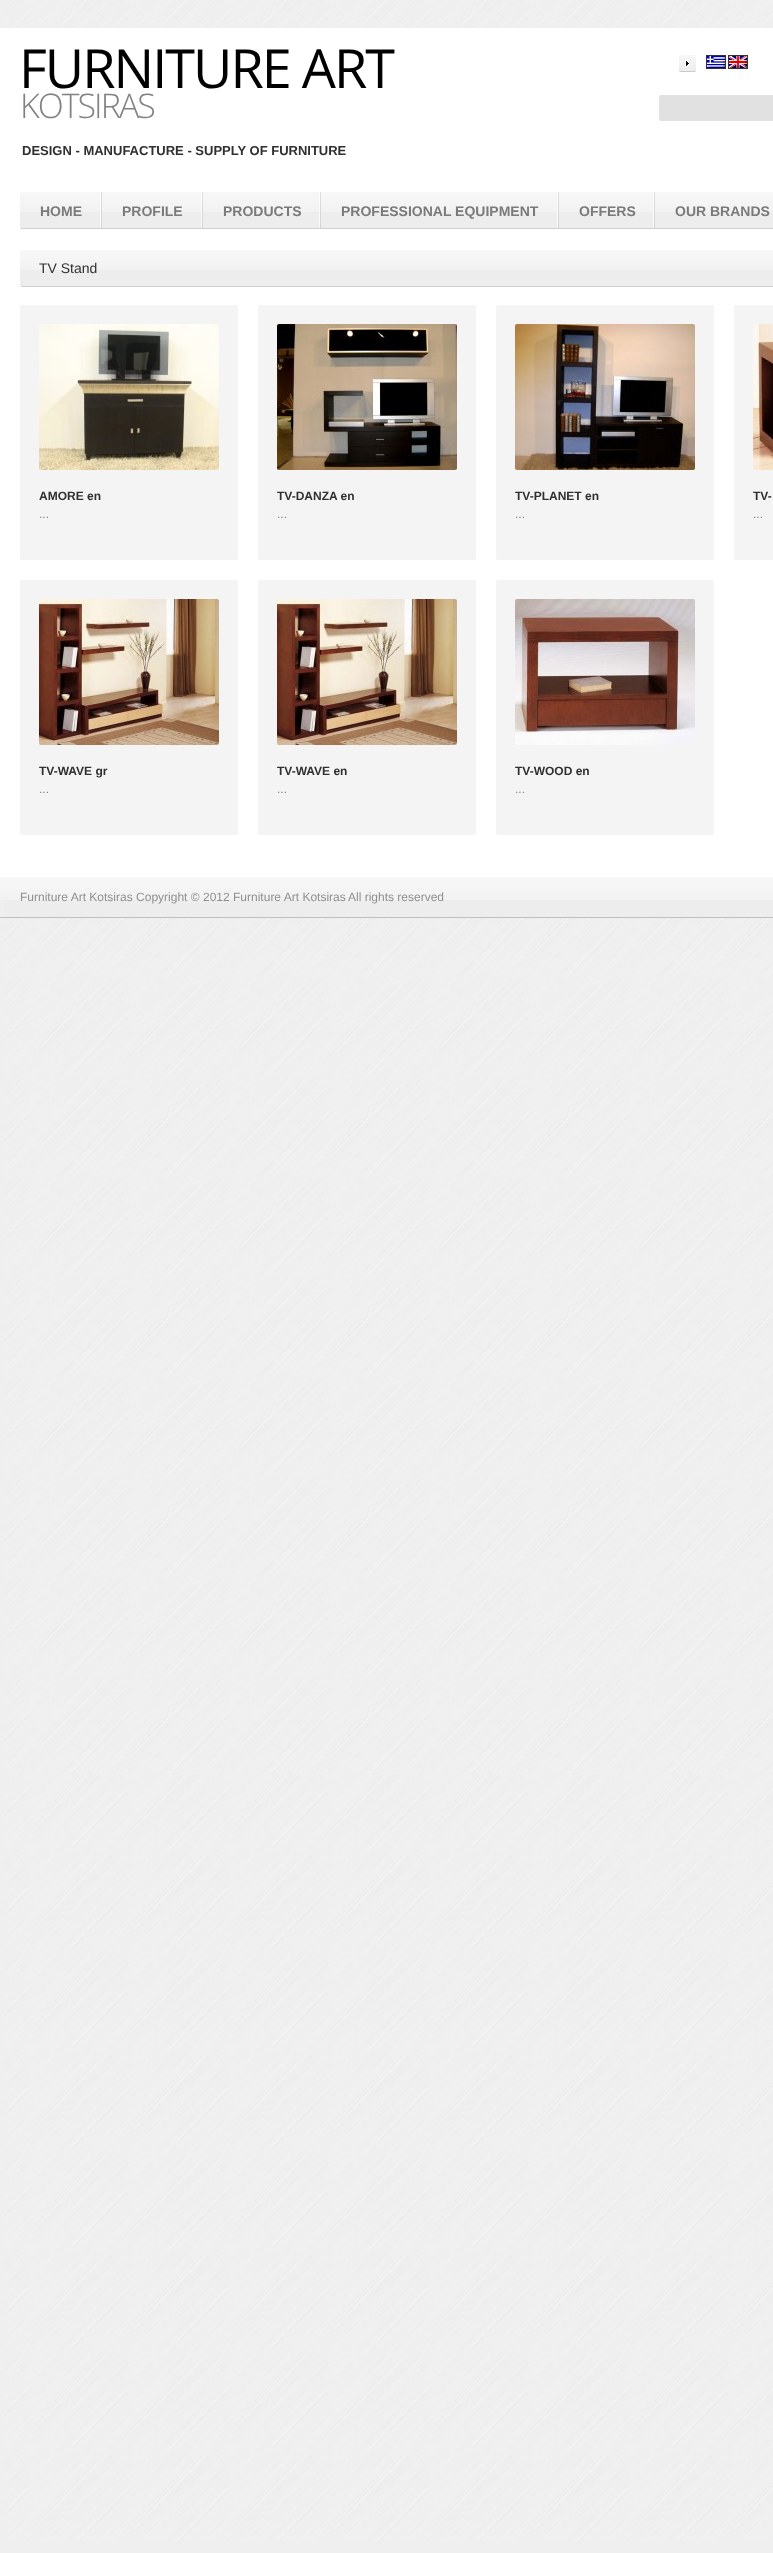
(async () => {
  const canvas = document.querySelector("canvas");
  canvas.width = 773;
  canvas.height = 2553;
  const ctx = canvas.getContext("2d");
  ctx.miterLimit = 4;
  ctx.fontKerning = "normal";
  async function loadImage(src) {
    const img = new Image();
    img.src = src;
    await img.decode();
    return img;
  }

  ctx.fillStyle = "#efefef";
  ctx.fillRect(0, 0, 773, 2553);
  ctx.drawImage(await loadImage("img/1.png"), 4, 0, 769, 2541);
  ctx.fillStyle = "#ffffff";
  ctx.fillRect(0, 28, 773, 849);
  ctx.drawImage(await loadImage("img/2.png"), 679, 55, 17, 17);
  ctx.strokeStyle = "#333333";
  ctx.strokeRect(706.5, 55.5, 19, 13);
  ctx.strokeRect(728.5, 55.5, 19, 13);
  ctx.drawImage(await loadImage("img/3.png"), 707, 56, 18, 12);
  ctx.drawImage(await loadImage("img/4.png"), 729, 56, 18, 12);
  ctx.fillStyle = "#e1e1e1";
  ctx.beginPath();
  ctx.roundRect(659, 95, 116, 26, 2);
  ctx.fill();
  ctx.fillStyle = "#ededed";
  ctx.beginPath();
  ctx.roundRect(20, 192, 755, 37, 2);
  ctx.fill();
  ctx.drawImage(await loadImage("img/5.png"), 20, 192, 753, 20);
  ctx.fillStyle = "#d0d0d0";
  ctx.fillRect(21, 228, 752, 1);
  ctx.drawImage(await loadImage("img/6.png"), 100, 192, 2, 36);
  ctx.drawImage(await loadImage("img/6.png"), 201, 192, 2, 36);
  ctx.drawImage(await loadImage("img/6.png"), 319, 192, 2, 36);
  ctx.drawImage(await loadImage("img/6.png"), 557, 192, 2, 36);
  ctx.drawImage(await loadImage("img/6.png"), 653, 192, 2, 36);
  ctx.fillStyle = "#ededed";
  ctx.beginPath();
  ctx.roundRect(20, 250, 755, 37, 2);
  ctx.fill();
  ctx.drawImage(await loadImage("img/5.png"), 20, 250, 753, 20);
  ctx.fillStyle = "#d0d0d0";
  ctx.fillRect(21, 286, 752, 1);
  ctx.fillStyle = "#f4f4f4";
  ctx.beginPath();
  ctx.roundRect(20, 305, 218, 255, 2);
  ctx.fill();
  ctx.drawImage(await loadImage("img/7.png"), 39, 324, 180, 146);
  ctx.beginPath();
  ctx.roundRect(258, 305, 218, 255, 2);
  ctx.fill();
  ctx.drawImage(await loadImage("img/8.png"), 277, 324, 180, 146);
  ctx.beginPath();
  ctx.roundRect(496, 305, 218, 255, 2);
  ctx.fill();
  ctx.drawImage(await loadImage("img/9.png"), 515, 324, 180, 146);
  ctx.beginPath();
  ctx.roundRect(734, 305, 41, 255, 2);
  ctx.fill();
  ctx.drawImage(await loadImage("img/10.png"), 753, 324, 20, 146);
  ctx.beginPath();
  ctx.roundRect(20, 580, 218, 255, 2);
  ctx.fill();
  ctx.drawImage(await loadImage("img/11.png"), 39, 599, 180, 146);
  ctx.beginPath();
  ctx.roundRect(258, 580, 218, 255, 2);
  ctx.fill();
  ctx.drawImage(await loadImage("img/11.png"), 277, 599, 180, 146);
  ctx.beginPath();
  ctx.roundRect(496, 580, 218, 255, 2);
  ctx.fill();
  ctx.drawImage(await loadImage("img/12.png"), 515, 599, 180, 146);
  ctx.fillStyle = "#ededed";
  ctx.fillRect(4, 900, 769, 17);
  ctx.drawImage(await loadImage("img/13.png"), 0, 877, 773, 23);
  ctx.fillStyle = "#bebebe";
  ctx.fillRect(0, 917, 773, 1);
  ctx.letterSpacing = "-2px";
  ctx.font = "54px Open Sans";
  ctx.fillStyle = "#000000";
  ctx.fillText("FURNITURE ART", 19, 88);
  ctx.font = "300 34px Open Sans";
  ctx.fillStyle = "#828282";
  ctx.fillText("KOTSIRAS", 20, 118);
  ctx.letterSpacing = "0px";
  ctx.font = "bold 13px Liberation Sans";
  ctx.fillStyle = "#303030";
  ctx.fillText("DESIGN - MANUFACTURE - SUPPLY OF FURNITURE", 22, 155);
  ctx.font = "bold 14px Liberation Sans";
  ctx.fillStyle = "#7a7a7a";
  for (const [text, x, y] of [
    ["HOME", 40, 216],
    ["PROFILE", 122, 216],
    ["PRODUCTS", 223, 216],
    ["PROFESSIONAL EQUIPMENT", 341, 216],
    ["OFFERS", 579, 216],
    ["OUR BRANDS", 675, 216],
  ]) {
    ctx.fillText(text, x, y);
  }
  ctx.font = "14px Liberation Sans";
  ctx.fillStyle = "#303030";
  ctx.fillText("TV Stand", 39, 273);
  ctx.font = "bold 12px Liberation Sans";
  ctx.fillText("AMORE en", 39, 500);
  ctx.font = "12px Liberation Sans";
  ctx.fillStyle = "#828282";
  ctx.fillText("...", 39, 518);
  ctx.font = "bold 12px Liberation Sans";
  ctx.fillStyle = "#303030";
  ctx.fillText("TV-DANZA en", 277, 500);
  ctx.font = "12px Liberation Sans";
  ctx.fillStyle = "#828282";
  ctx.fillText("...", 277, 518);
  ctx.font = "bold 12px Liberation Sans";
  ctx.fillStyle = "#303030";
  ctx.fillText("TV-PLANET en", 515, 500);
  ctx.font = "12px Liberation Sans";
  ctx.fillStyle = "#828282";
  ctx.fillText("...", 515, 518);
  ctx.font = "bold 12px Liberation Sans";
  ctx.fillStyle = "#303030";
  ctx.fillText("TV-", 753, 500);
  ctx.font = "12px Liberation Sans";
  ctx.fillStyle = "#828282";
  ctx.fillText("...", 753, 518);
  ctx.font = "bold 12px Liberation Sans";
  ctx.fillStyle = "#303030";
  ctx.fillText("TV-WAVE gr", 39, 775);
  ctx.font = "12px Liberation Sans";
  ctx.fillStyle = "#828282";
  ctx.fillText("...", 39, 793);
  ctx.font = "bold 12px Liberation Sans";
  ctx.fillStyle = "#303030";
  ctx.fillText("TV-WAVE en", 277, 775);
  ctx.font = "12px Liberation Sans";
  ctx.fillStyle = "#828282";
  ctx.fillText("...", 277, 793);
  ctx.font = "bold 12px Liberation Sans";
  ctx.fillStyle = "#303030";
  ctx.fillText("TV-WOOD en", 515, 775);
  ctx.font = "12px Liberation Sans";
  ctx.fillStyle = "#828282";
  ctx.fillText("...", 515, 793);
  ctx.fillStyle = "#8f8f8f";
  for (const [text, x, y] of [
    ["Furniture Art Kotsiras Copyright ©", 20, 901],
    ["2012 Furniture Art Kotsiras", 203, 901],
    ["All rights reserved", 348, 901],
  ]) {
    ctx.fillText(text, x, y);
  }
})();
